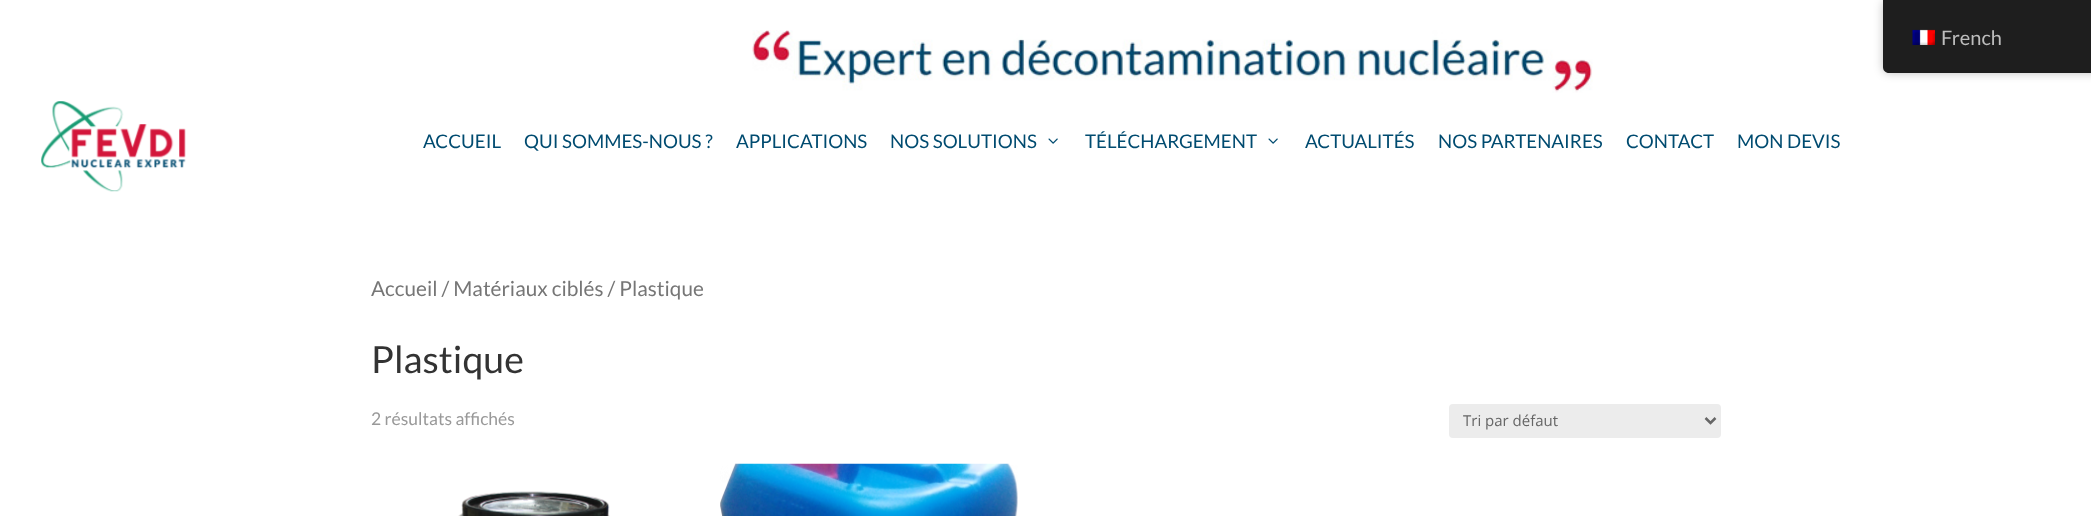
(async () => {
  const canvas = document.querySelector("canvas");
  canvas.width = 2091;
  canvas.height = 516;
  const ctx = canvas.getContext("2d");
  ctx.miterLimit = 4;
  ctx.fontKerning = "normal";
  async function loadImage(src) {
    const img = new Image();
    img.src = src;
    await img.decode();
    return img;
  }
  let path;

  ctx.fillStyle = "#ffffff";
  ctx.fillRect(0, 0, 2091, 516);
  ctx.drawImage(await loadImage("img/1.png"), 752, 30, 841, 63);
  ctx.fillStyle = "rgba(0, 0, 0, 0.25)";
  ctx.filter = "blur(5px)";
  ctx.beginPath();
  ctx.roundRect(1883, 0, 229, 73, 6);
  ctx.fill();
  ctx.filter = "none";
  ctx.fillStyle = "#1e1e1e";
  path = new Path2D("M1883 0H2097V67C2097 70.5 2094.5 73 2091 73H1889C1885.5 73 1883 70.5 1883 67Z");
  ctx.fill(path);
  ctx.drawImage(await loadImage("img/2.png"), 1912, 29, 23, 16);
  ctx.drawImage(await loadImage("img/3.png"), 41, 101, 145, 91);
  ctx.drawImage(await loadImage("img/4.png"), 1048, 138, 10, 6);
  ctx.drawImage(await loadImage("img/4.png"), 1268, 138, 10, 6);
  ctx.fillStyle = "#ececec";
  ctx.beginPath();
  ctx.roundRect(1449, 404, 272, 34, 4);
  ctx.fill();
  path = new Path2D("M1705.5 418L1710.5 423L1715.5 418");
  ctx.strokeStyle = "#666666";
  ctx.lineWidth = 2.5;
  ctx.stroke(path);
  ctx.drawImage(await loadImage("img/5.png"), 458, 491, 152, 25);
  ctx.drawImage(await loadImage("img/6.png"), 720, 463, 298, 53);
  ctx.font = "20px Lato";
  ctx.fillStyle = "#bdbdbd";
  ctx.fillText("French", 1941, 45);
  ctx.font = "18.75px Lato";
  ctx.fillStyle = "#004b70";
  for (const [text, x, y] of [
    ["ACCUEIL", 423, 148],
    ["QUI SOMMES-NOUS ?", 524, 148],
    ["APPLICATIONS", 736, 148],
    ["NOS SOLUTIONS", 890, 148],
    ["TÉLÉCHARGEMENT", 1085, 148],
    ["ACTUALITÉS", 1305, 148],
    ["NOS PARTENAIRES", 1438, 148],
    ["CONTACT", 1626, 148],
    ["MON DEVIS", 1737, 148],
  ]) {
    ctx.fillText(text, x, y);
  }
  ctx.font = "20.75px Lato";
  ctx.fillStyle = "#767676";
  ctx.fillText("Accueil / Matériaux ciblés / Plastique", 371, 296);
  ctx.font = "37.5px Lato";
  ctx.fillStyle = "#333333";
  ctx.fillText("Plastique", 371, 373);
  ctx.font = "17.5px Lato";
  ctx.fillStyle = "#999999";
  ctx.fillText("2 résultats affichés", 371, 425);
  ctx.font = "15px Open Sans";
  ctx.fillStyle = "#666666";
  ctx.fillText("Tri par défaut", 1463, 426);
})();
